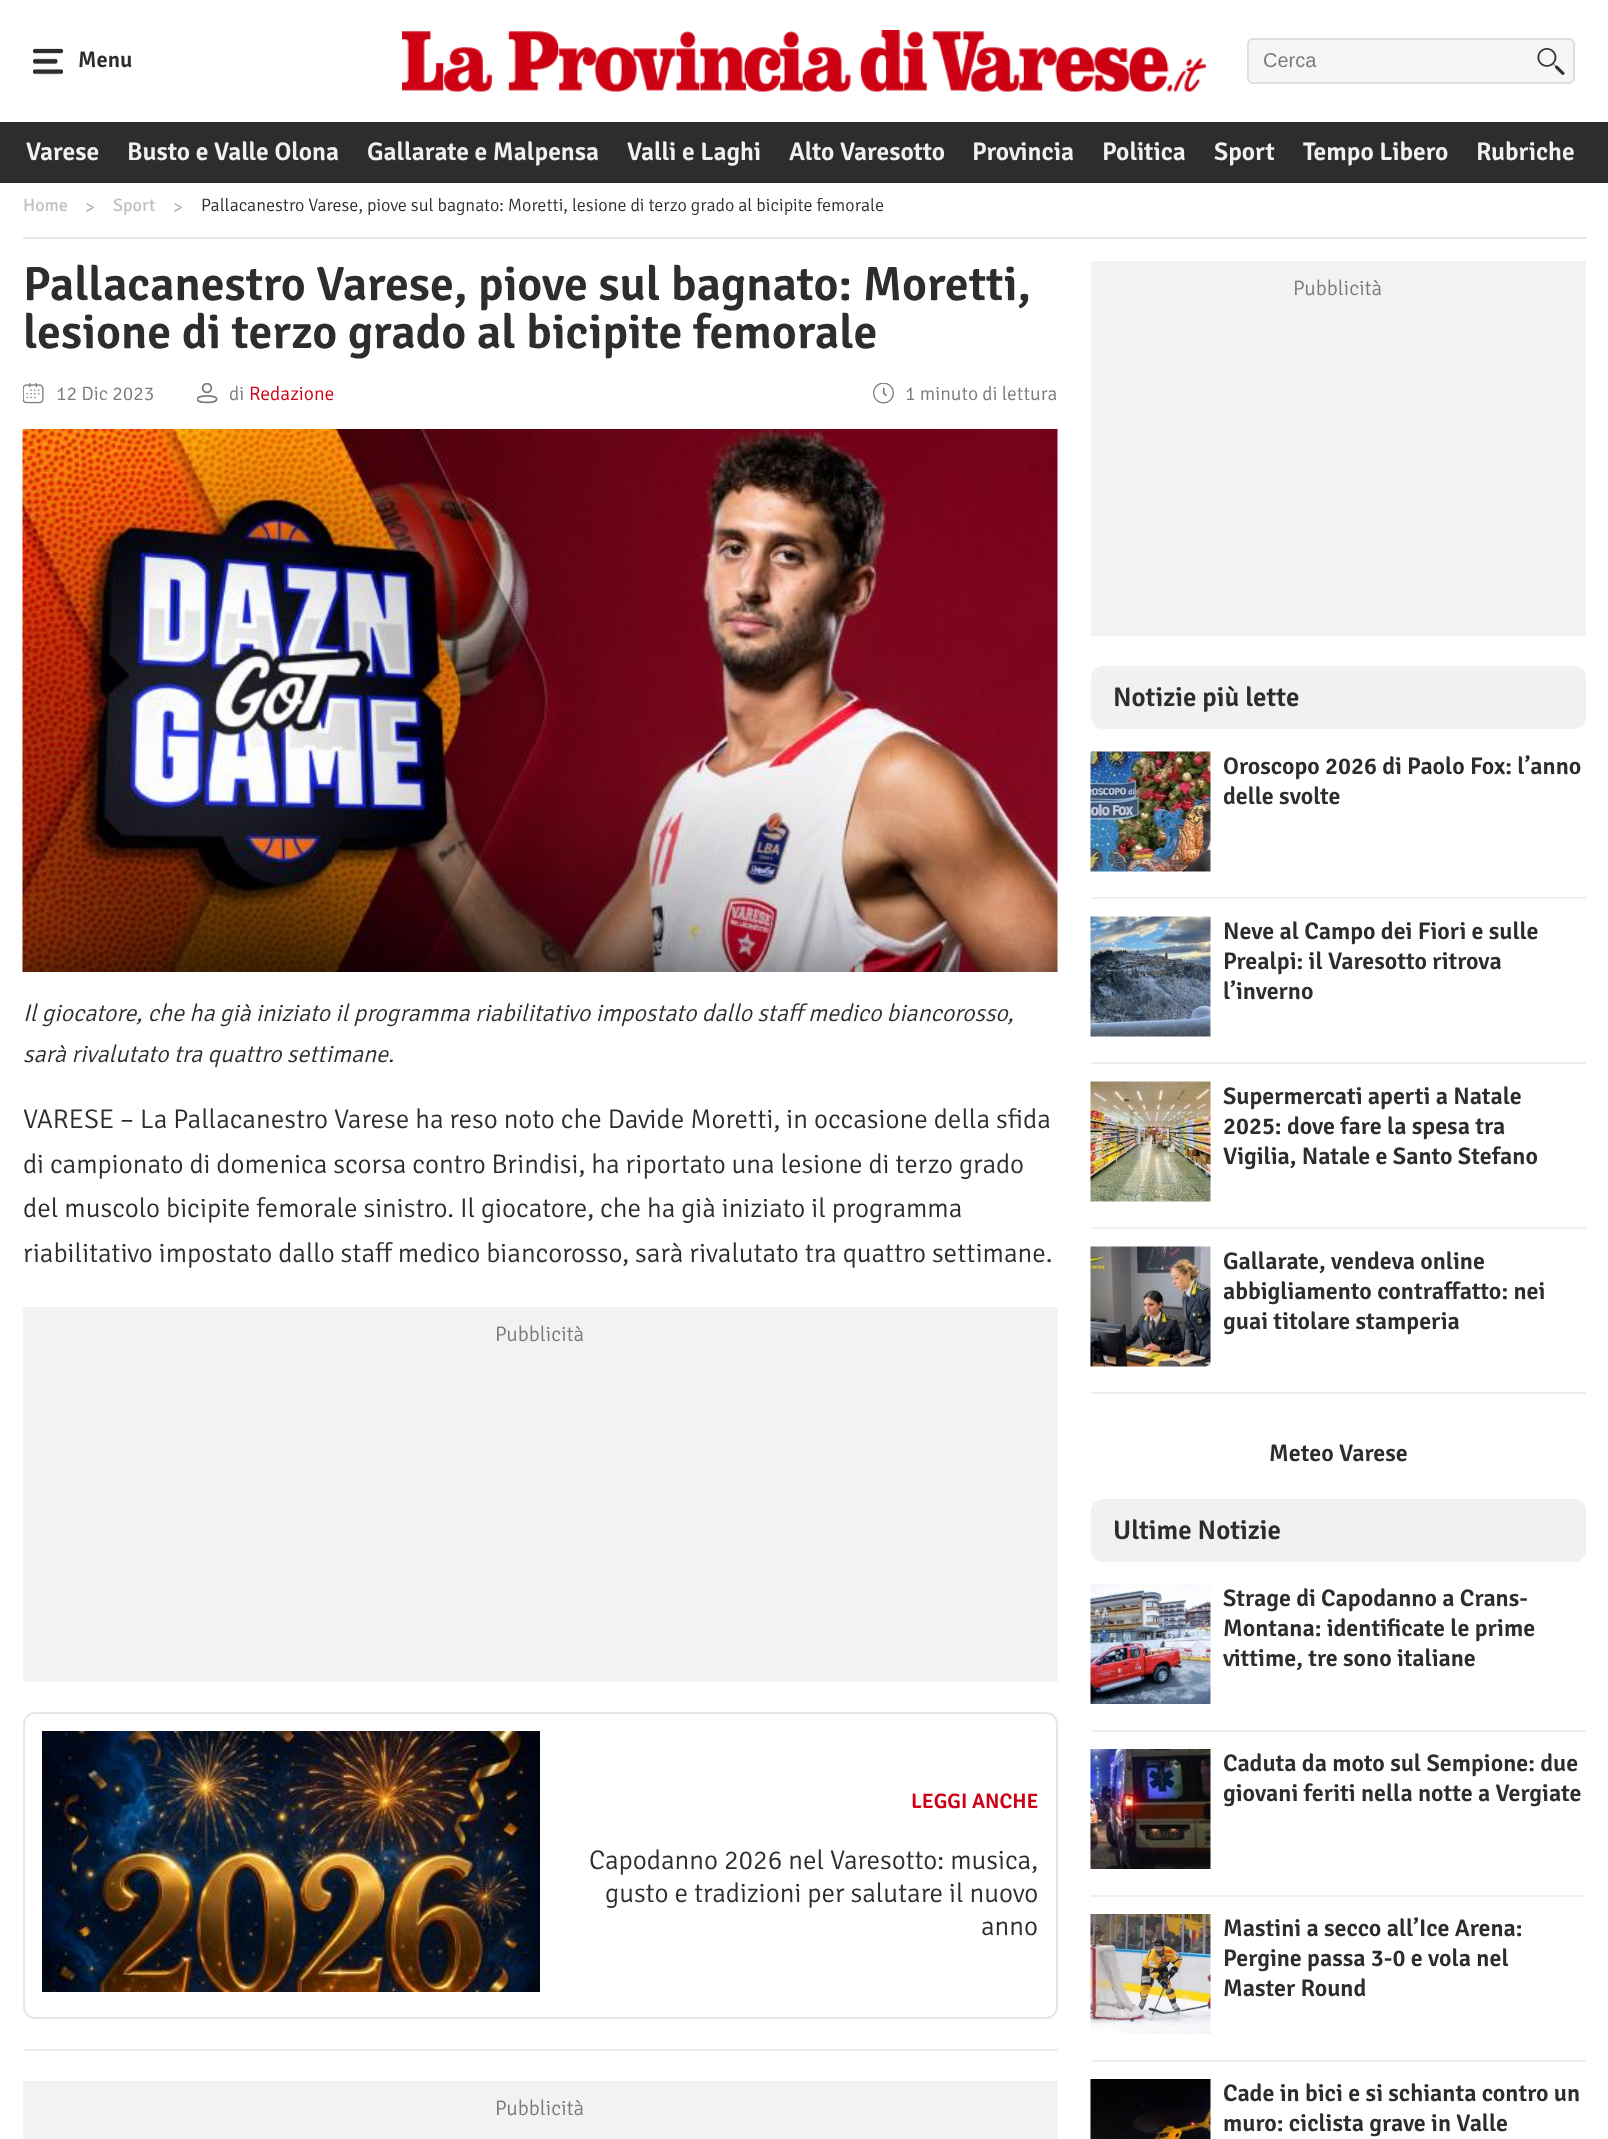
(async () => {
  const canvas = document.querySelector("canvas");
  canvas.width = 1608;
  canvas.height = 2139;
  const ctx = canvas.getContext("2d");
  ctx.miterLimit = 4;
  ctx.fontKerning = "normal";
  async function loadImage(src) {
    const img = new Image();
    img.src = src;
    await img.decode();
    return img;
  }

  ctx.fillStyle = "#ffffff";
  ctx.fillRect(0, 0, 1608, 2139);
  ctx.drawImage(await loadImage("img/1.png"), 33, 48, 30, 27);
  ctx.drawImage(await loadImage("img/2.png"), 402, 30, 804, 62);
  ctx.fillStyle = "#f6f6f6";
  ctx.beginPath();
  ctx.roundRect(1248, 39, 326, 44, 5);
  ctx.fill();
  ctx.strokeStyle = "#dedede";
  ctx.lineWidth = 2;
  ctx.stroke();
  ctx.drawImage(await loadImage("img/3.png"), 1537, 48, 28, 27);
  ctx.fillStyle = "#2d2d2d";
  ctx.fillRect(0, 122, 1608, 61);
  ctx.fillStyle = "#e6e6e6";
  ctx.fillRect(23, 237, 1563, 2);
  ctx.drawImage(await loadImage("img/4.png"), 23, 383, 21, 21);
  ctx.drawImage(await loadImage("img/5.png"), 197, 383, 21, 21);
  ctx.drawImage(await loadImage("img/6.png"), 873, 383, 21, 21);
  ctx.drawImage(await loadImage("img/7.png"), 22, 429, 1036, 543);
  ctx.fillStyle = "#ececec";
  ctx.fillRect(23, 2049, 1035, 2);
  ctx.fillStyle = "#f2f2f2";
  ctx.fillRect(23, 1307, 1035, 375);
  ctx.beginPath();
  ctx.roundRect(24, 1713, 1033, 305, 11);
  ctx.strokeStyle = "#e9e4e7";
  ctx.stroke();
  ctx.drawImage(await loadImage("img/8.png"), 42, 1731, 498, 261);
  ctx.fillRect(23, 2081, 1035, 58);
  ctx.fillRect(1091, 261, 495, 375);
  ctx.fillStyle = "#f1f1f1";
  ctx.beginPath();
  ctx.roundRect(1091, 666, 495, 63, 12);
  ctx.fill();
  ctx.fillStyle = "#efefef";
  ctx.fillRect(1091, 897, 495, 2);
  ctx.drawImage(await loadImage("img/9.png"), 1090, 751, 121, 121);
  ctx.fillRect(1091, 1062, 495, 2);
  ctx.drawImage(await loadImage("img/10.png"), 1090, 916, 121, 121);
  ctx.fillRect(1091, 1227, 495, 2);
  ctx.drawImage(await loadImage("img/11.png"), 1090, 1081, 121, 121);
  ctx.fillRect(1091, 1392, 495, 2);
  ctx.drawImage(await loadImage("img/12.png"), 1090, 1246, 121, 121);
  ctx.fillStyle = "#f1f1f1";
  ctx.beginPath();
  ctx.roundRect(1091, 1499, 495, 63, 12);
  ctx.fill();
  ctx.fillStyle = "#efefef";
  ctx.fillRect(1091, 1730, 495, 2);
  ctx.drawImage(await loadImage("img/13.png"), 1090, 1584, 121, 120);
  ctx.fillRect(1091, 1895, 495, 2);
  ctx.drawImage(await loadImage("img/14.png"), 1090, 1749, 121, 120);
  ctx.fillRect(1091, 2060, 495, 2);
  ctx.drawImage(await loadImage("img/15.png"), 1090, 1914, 121, 120);
  ctx.drawImage(await loadImage("img/16.png"), 1090, 2079, 121, 60);
  ctx.font = "600 22.5px Signika";
  ctx.fillStyle = "#2d2d2d";
  ctx.fillText("Menu", 78, 67);
  ctx.font = "20px Liberation Sans";
  ctx.fillStyle = "#7a7a7a";
  ctx.fillText("Cerca", 1263, 67);
  ctx.font = "600 25.5px Signika";
  ctx.fillStyle = "#f1f1f1";
  for (const [text, x, y] of [
    ["Varese", 26, 160],
    ["Busto e Valle Olona", 127, 160],
    ["Gallarate e Malpensa", 367, 160],
    ["Valli e Laghi", 627, 160],
    ["Alto Varesotto", 789, 160],
    ["Provincia", 972, 160],
    ["Politica", 1102, 160],
    ["Sport", 1214, 160],
    ["Tempo Libero", 1303, 160],
    ["Rubriche", 1476, 160],
  ]) {
    ctx.fillText(text, x, y);
  }
  ctx.font = "18px Signika";
  ctx.fillStyle = "#c0c0c0";
  ctx.fillText("Home", 23, 211);
  ctx.font = "300 18px Signika";
  ctx.fillStyle = "#aaaaaa";
  ctx.fillText(">", 85, 213);
  ctx.font = "18px Signika";
  ctx.fillStyle = "#c0c0c0";
  ctx.fillText("Sport", 113, 211);
  ctx.font = "300 18px Signika";
  ctx.fillStyle = "#aaaaaa";
  ctx.fillText(">", 173, 213);
  ctx.save();
  ctx.beginPath();
  ctx.rect(156, 198, 728, 18);
  ctx.clip();
  ctx.fillStyle = "#2d2d2d";
  ctx.fillText("Pallacanestro Varese, piove sul bagnato: Moretti, lesione di terzo grado al bicipite femorale", 201, 211);
  ctx.restore();
  ctx.font = "600 48px Signika";
  ctx.fillStyle = "#2d2d2d";
  ctx.fillText("Pallacanestro Varese, piove sul bagnato: Moretti,", 23, 300);
  ctx.fillText("lesione di terzo grado al bicipite femorale", 23, 348);
  ctx.font = "300 19.5px Signika";
  ctx.fillStyle = "#7a7a7a";
  ctx.fillText("12 Dic 2023", 56, 400);
  ctx.fillText("di", 229, 400);
  ctx.fillStyle = "#ce0014";
  ctx.fillText("Redazione", 249, 400);
  ctx.fillStyle = "#7a7a7a";
  ctx.fillText("1 minuto di lettura", 905, 400);
  ctx.font = "italic 300 24px Signika";
  ctx.fillStyle = "#2d2d2d";
  ctx.fillText("Il giocatore, che ha già iniziato il programma riabilitativo impostato dallo staff medico biancorosso,", 23, 1021);
  ctx.fillText("sarà rivalutato tra quattro settimane.", 23, 1062);
  ctx.font = "300 27px Signika";
  for (const [text, x, y] of [
    ["VARESE – La Pallacanestro Varese ha reso noto che Davide Moretti, in occasione della sfida", 23, 1128],
    ["di campionato di domenica scorsa contro Brindisi, ha riportato una lesione di terzo grado", 23, 1173],
    ["del muscolo bicipite femorale sinistro. Il giocatore, che ha già iniziato il programma", 23, 1217],
    ["riabilitativo impostato dallo staff medico biancorosso, sarà rivalutato tra quattro settimane.", 23, 1262],
  ]) {
    ctx.fillText(text, x, y);
  }
  ctx.font = "300 21px Signika";
  ctx.fillStyle = "#7a7a7a";
  ctx.fillText("Pubblicità", 495, 1341);
  ctx.font = "600 21px Signika";
  ctx.fillStyle = "#ce0014";
  ctx.fillText("LEGGI ANCHE", 911, 1808);
  ctx.font = "300 27px Signika";
  ctx.fillStyle = "#2d2d2d";
  for (const [text, x, y] of [
    ["Capodanno 2026 nel Varesotto: musica,", 589, 1869],
    ["gusto e tradizioni per salutare il nuovo", 605, 1902],
    ["anno", 981, 1935],
  ]) {
    ctx.fillText(text, x, y);
  }
  ctx.font = "300 21px Signika";
  ctx.fillStyle = "#7a7a7a";
  ctx.fillText("Pubblicità", 495, 2115);
  ctx.fillText("Pubblicità", 1293, 295);
  ctx.font = "600 27px Signika";
  ctx.fillStyle = "#2d2d2d";
  ctx.fillText("Notizie più lette", 1113, 706);
  ctx.font = "600 24px Signika";
  for (const [text, x, y] of [
    ["Oroscopo 2026 di Paolo Fox: l’anno", 1223, 774],
    ["delle svolte", 1223, 804],
    ["Neve al Campo dei Fiori e sulle", 1223, 939],
    ["Prealpi: il Varesotto ritrova", 1223, 969],
    ["l’inverno", 1223, 999],
    ["Supermercati aperti a Natale", 1223, 1104],
    ["2025: dove fare la spesa tra", 1223, 1134],
    ["Vigilia, Natale e Santo Stefano", 1223, 1164],
    ["Gallarate, vendeva online", 1223, 1269],
    ["abbigliamento contraffatto: nei", 1223, 1299],
    ["guai titolare stamperia", 1223, 1329],
    ["Meteo Varese", 1269, 1461],
  ]) {
    ctx.fillText(text, x, y);
  }
  ctx.font = "600 27px Signika";
  ctx.fillText("Ultime Notizie", 1113, 1539);
  ctx.font = "600 24px Signika";
  for (const [text, x, y] of [
    ["Strage di Capodanno a Crans-", 1223, 1606],
    ["Montana: identificate le prime", 1223, 1636],
    ["vittime, tre sono italiane", 1223, 1666],
    ["Caduta da moto sul Sempione: due", 1223, 1771],
    ["giovani feriti nella notte a Vergiate", 1223, 1801],
    ["Mastini a secco all’Ice Arena:", 1223, 1936],
    ["Pergine passa 3-0 e vola nel", 1223, 1966],
    ["Master Round", 1223, 1996],
    ["Cade in bici e si schianta contro un", 1223, 2101],
    ["muro: ciclista grave in Valle", 1223, 2131],
  ]) {
    ctx.fillText(text, x, y);
  }
})();
